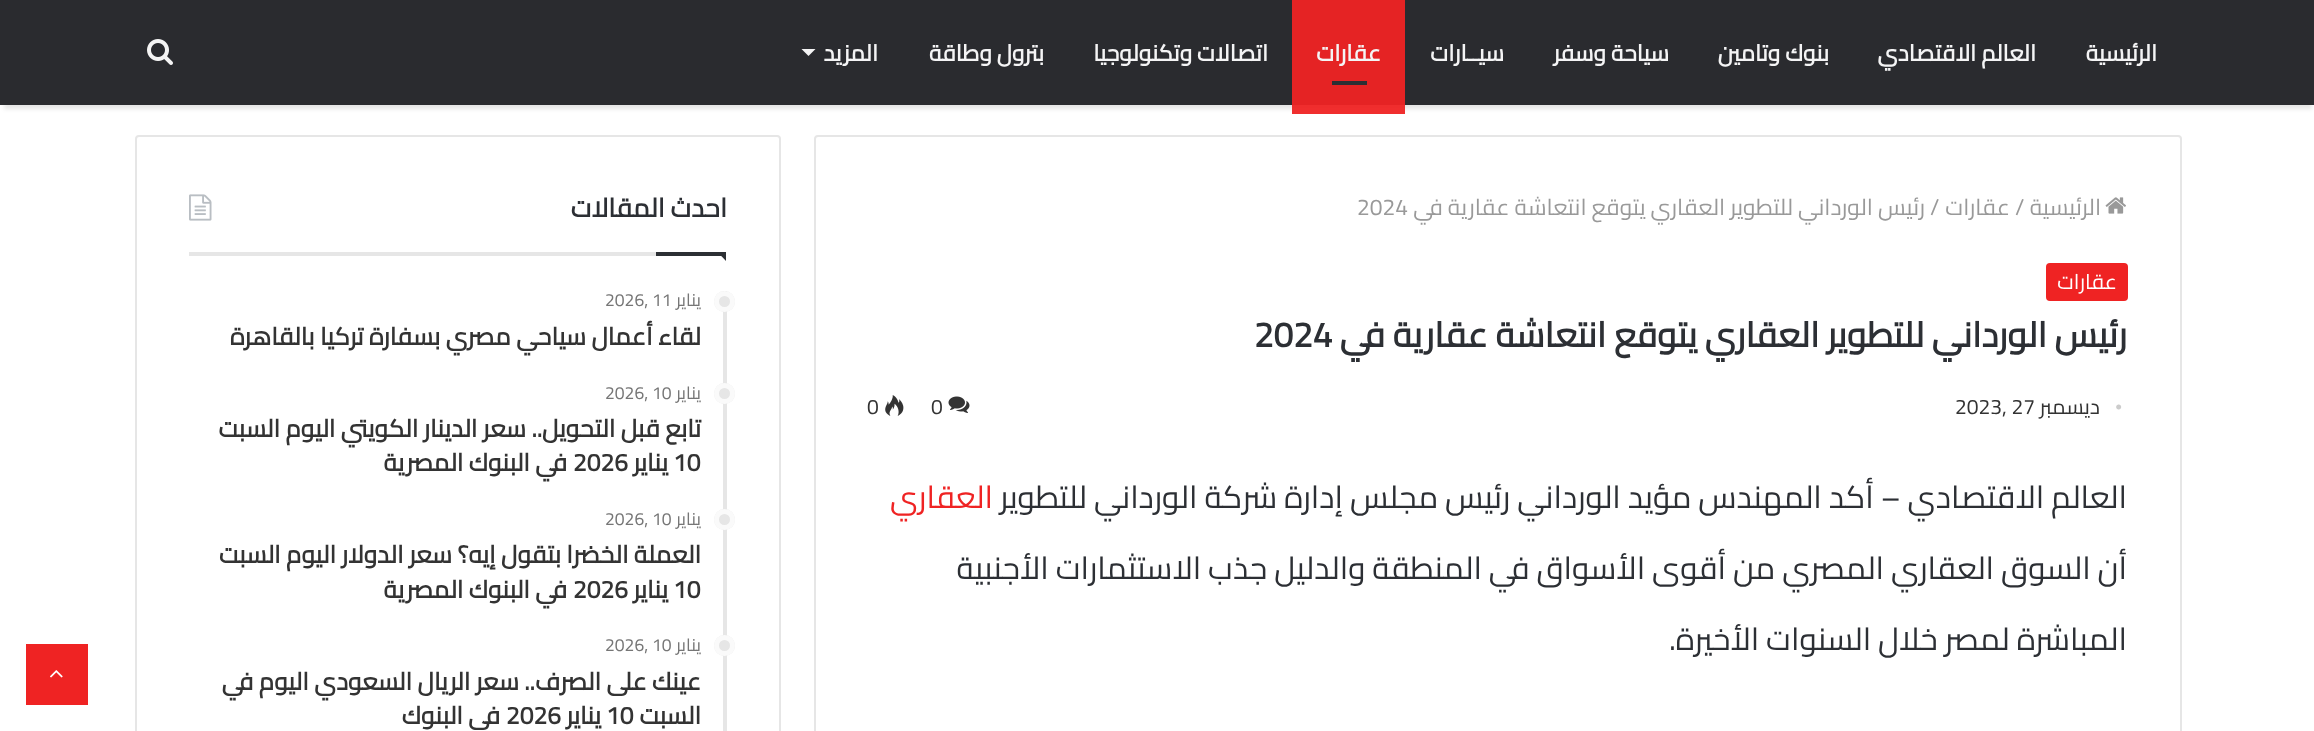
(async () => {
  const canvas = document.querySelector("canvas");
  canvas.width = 2314;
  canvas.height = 731;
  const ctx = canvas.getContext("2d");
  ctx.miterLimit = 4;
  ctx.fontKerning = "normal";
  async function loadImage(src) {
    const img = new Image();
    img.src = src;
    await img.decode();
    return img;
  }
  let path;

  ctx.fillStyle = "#ffffff";
  ctx.fillRect(0, 0, 2314, 731);
  ctx.fillStyle = "rgba(0, 0, 0, 0.1)";
  ctx.filter = "blur(2px)";
  ctx.beginPath();
  ctx.rect(4, 11, 2308, 98);
  ctx.fill();
  ctx.filter = "none";
  for (const [x, y, w, h, color] of [
    [0, 0, 2314, 105, "#2a2b2f"],
    [1292, 105, 113, 9, "rgba(239, 35, 35, 0.95)"],
    [1292, 0, 113, 105, "#e52324"],
    [1332, 81, 35, 4, "#2c2f34"],
  ]) {
    ctx.fillStyle = color;
    ctx.fillRect(x, y, w, h);
  }
  ctx.fillStyle = "#f4f4f5";
  path = new Path2D("M801.5 49H815.5L808.5 56Z");
  ctx.fill(path);
  ctx.drawImage(await loadImage("img/1.png"), 147, 39, 26, 26);
  ctx.beginPath();
  ctx.roundRect(815, 136, 1366, 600, 3);
  ctx.strokeStyle = "#e6e6e6";
  ctx.lineWidth = 2;
  ctx.stroke();
  ctx.drawImage(await loadImage("img/2.png"), 2105, 197, 21, 17);
  ctx.fillStyle = "#ef2323";
  ctx.beginPath();
  ctx.roundRect(2046, 263, 82, 38, 4);
  ctx.fill();
  ctx.drawImage(await loadImage("img/3.png"), 948, 396, 22, 17);
  ctx.drawImage(await loadImage("img/4.png"), 885, 395, 19, 21);
  ctx.beginPath();
  ctx.roundRect(136, 136, 644, 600, 3);
  ctx.stroke();
  ctx.fillStyle = "#e6e6e6";
  ctx.fillRect(189, 252, 467, 4);
  ctx.drawImage(await loadImage("img/5.png"), 189, 194, 23, 27);
  ctx.fillStyle = "#2c2f34";
  path = new Path2D("M717.5 252H726V261Z");
  ctx.fill(path);
  ctx.fillRect(656, 252, 70, 4);
  ctx.fillStyle = "#e6e6e6";
  ctx.fillRect(723, 291, 4, 440);
  ctx.beginPath();
  ctx.arc(724.5, 301.5, 10.5, 0, Math.PI * 2);
  ctx.fill();
  ctx.beginPath();
  ctx.arc(724.5, 301.5, 8, 0, Math.PI * 2);
  ctx.strokeStyle = "rgba(255, 255, 255, 0.8)";
  ctx.lineWidth = 5;
  ctx.stroke();
  ctx.beginPath();
  ctx.arc(724.5, 393.5, 10.5, 0, Math.PI * 2);
  ctx.fill();
  ctx.beginPath();
  ctx.arc(724.5, 393.5, 8, 0, Math.PI * 2);
  ctx.stroke();
  ctx.beginPath();
  ctx.arc(724.5, 519.5, 10.5, 0, Math.PI * 2);
  ctx.fill();
  ctx.beginPath();
  ctx.arc(724.5, 519.5, 8, 0, Math.PI * 2);
  ctx.stroke();
  ctx.beginPath();
  ctx.arc(724.5, 645.5, 10.5, 0, Math.PI * 2);
  ctx.fill();
  ctx.beginPath();
  ctx.arc(724.5, 645.5, 8, 0, Math.PI * 2);
  ctx.stroke();
  ctx.fillStyle = "#ef2323";
  ctx.fillRect(26, 644, 62, 61);
  ctx.drawImage(await loadImage("img/6.png"), 50, 670, 13, 8);
  ctx.direction = "rtl";
  ctx.font = "bold 22.75px Cairo";
  ctx.fillStyle = "#f4f4f5";
  for (const [text, x, y] of [
    ["الرئيسية", 2157, 61],
    ["العالم الاقتصادي", 2036, 61],
    ["بنوك وتامين", 1829, 61],
    ["سياحة وسفر", 1669, 61],
    ["سيــارات", 1504, 61],
    ["عقارات", 1381, 61],
    ["اتصالات وتكنولوجيا", 1268, 61],
    ["بترول وطاقة", 1044, 61],
    ["المزيد", 878, 61],
  ]) {
    ctx.fillText(text, x, y);
  }
  ctx.font = "22.75px Cairo";
  ctx.fillStyle = "#999999";
  ctx.fillText("الرئيسية", 2101, 215);
  ctx.direction = "ltr";
  ctx.fillText("/", 2015, 215);
  ctx.direction = "rtl";
  ctx.fillText("عقارات", 2010, 215);
  ctx.direction = "ltr";
  ctx.fillText("/", 1930, 215);
  ctx.direction = "rtl";
  ctx.fillText("رئيس الورداني للتطوير العقاري يتوقع انتعاشة عقارية في", 1925, 215);
  ctx.direction = "ltr";
  ctx.fillText("2024", 1357, 215);
  ctx.direction = "rtl";
  ctx.font = "21px Cairo";
  ctx.fillStyle = "#ffffff";
  ctx.fillText("عقارات", 2117, 289);
  ctx.font = "bold 35px Cairo";
  ctx.fillStyle = "#2c2f34";
  ctx.fillText("رئيس الورداني للتطوير العقاري يتوقع انتعاشة عقارية في", 2127, 347);
  ctx.direction = "ltr";
  ctx.fillText("2024", 1254, 347);
  ctx.font = "21px Liberation Serif";
  ctx.fillStyle = "#cccccc";
  ctx.fillText("•", 2115, 414);
  ctx.direction = "rtl";
  ctx.font = "21px Cairo";
  ctx.fillStyle = "#333333";
  ctx.fillText("ديسمبر", 2100, 414);
  ctx.direction = "ltr";
  for (const [text, x, y] of [
    ["2023, 27", 1955, 414],
    ["0", 931, 414],
    ["0", 867, 414],
  ]) {
    ctx.fillText(text, x, y);
  }
  ctx.direction = "rtl";
  ctx.font = "31.5px Cairo";
  ctx.fillStyle = "#2c2f34";
  ctx.fillText("العالم الاقتصادي – أكد المهندس مؤيد الورداني رئيس مجلس إدارة شركة الورداني للتطوير", 2127, 508);
  ctx.fillStyle = "#ef2323";
  ctx.fillText("العقاري", 993, 508);
  ctx.fillStyle = "#2c2f34";
  ctx.fillText("أن السوق العقاري المصري من أقوى الأسواق في المنطقة والدليل جذب الاستثمارات الأجنبية", 2127, 579);
  ctx.fillText("المباشرة لمصر خلال السنوات الأخيرة.", 2127, 650);
  ctx.font = "bold 26.25px Cairo";
  ctx.fillText("احدث المقالات", 727, 217);
  ctx.font = "17.5px Cairo";
  ctx.fillStyle = "#767676";
  ctx.fillText("يناير", 701, 306);
  ctx.direction = "ltr";
  ctx.fillText("2026, 11", 605, 306);
  ctx.direction = "rtl";
  ctx.font = "bold 24.5px Cairo";
  ctx.fillStyle = "#333333";
  ctx.fillText("لقاء أعمال سياحي مصري بسفارة تركيا بالقاهرة", 701, 345);
  ctx.font = "17.5px Cairo";
  ctx.fillStyle = "#767676";
  ctx.fillText("يناير", 701, 399);
  ctx.direction = "ltr";
  ctx.fillText("2026, 10", 605, 399);
  ctx.direction = "rtl";
  ctx.font = "bold 24.5px Cairo";
  ctx.fillStyle = "#333333";
  ctx.fillText("تابع قبل التحويل.. سعر الدينار الكويتي اليوم السبت", 701, 437);
  ctx.direction = "ltr";
  ctx.fillText("10", 673, 471);
  ctx.direction = "rtl";
  ctx.fillText("يناير", 668, 471);
  ctx.direction = "ltr";
  ctx.fillText("2026", 573, 471);
  ctx.direction = "rtl";
  ctx.fillText("في البنوك المصرية", 567, 471);
  ctx.font = "17.5px Cairo";
  ctx.fillStyle = "#767676";
  ctx.fillText("يناير", 701, 525);
  ctx.direction = "ltr";
  ctx.fillText("2026, 10", 605, 525);
  ctx.direction = "rtl";
  ctx.font = "bold 24.5px Cairo";
  ctx.fillStyle = "#333333";
  ctx.fillText("العملة الخضرا بتقول إيه؟ سعر الدولار اليوم السبت", 701, 563);
  ctx.direction = "ltr";
  ctx.fillText("10", 673, 598);
  ctx.direction = "rtl";
  ctx.fillText("يناير", 668, 598);
  ctx.direction = "ltr";
  ctx.fillText("2026", 573, 598);
  ctx.direction = "rtl";
  ctx.fillText("في البنوك المصرية", 567, 598);
  ctx.font = "17.5px Cairo";
  ctx.fillStyle = "#767676";
  ctx.fillText("يناير", 701, 651);
  ctx.direction = "ltr";
  ctx.fillText("2026, 10", 605, 651);
  ctx.direction = "rtl";
  ctx.font = "bold 24.5px Cairo";
  ctx.fillStyle = "#333333";
  ctx.fillText("عينك على الصرف.. سعر الريال السعودي اليوم في", 701, 690);
  ctx.fillText("السبت", 701, 724);
  ctx.direction = "ltr";
  ctx.fillText("10", 606, 724);
  ctx.direction = "rtl";
  ctx.fillText("يناير", 601, 724);
  ctx.direction = "ltr";
  ctx.fillText("2026", 506, 724);
  ctx.direction = "rtl";
  ctx.fillText("في البنوك", 500, 724);
})();
